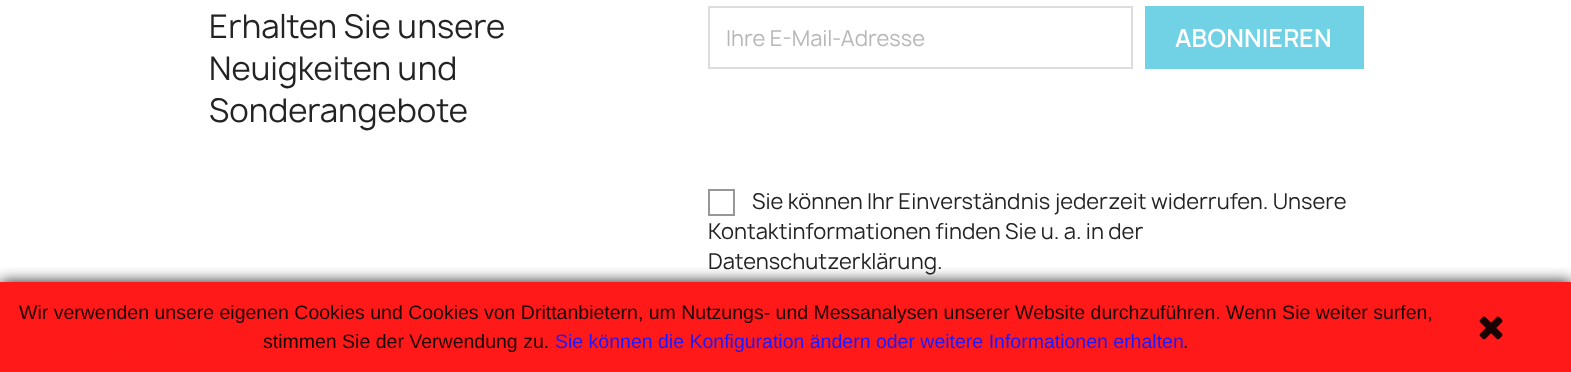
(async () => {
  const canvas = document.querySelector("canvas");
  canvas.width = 1571;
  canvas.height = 372;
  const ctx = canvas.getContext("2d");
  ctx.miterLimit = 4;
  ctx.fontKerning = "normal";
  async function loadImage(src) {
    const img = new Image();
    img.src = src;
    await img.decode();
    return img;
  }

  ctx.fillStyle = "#ffffff";
  ctx.fillRect(0, 0, 1571, 372);
  ctx.fillStyle = "#ff1919";
  ctx.fillRect(0, 282, 1571, 90);
  ctx.strokeStyle = "#dddddd";
  ctx.lineWidth = 2;
  ctx.strokeRect(709, 7, 423, 61);
  ctx.fillStyle = "#71d2e5";
  ctx.fillRect(1145, 6, 219, 63);
  ctx.strokeStyle = "#979797";
  ctx.strokeRect(709, 190, 25, 25);
  ctx.drawImage(await loadImage("img/1.png"), 111, 314, 21, 43);
  ctx.drawImage(await loadImage("img/2.png"), 168, 317, 42, 36);
  ctx.drawImage(await loadImage("img/3.png"), 232, 314, 43, 43);
  ctx.save();
  ctx.beginPath();
  ctx.rect(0, 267, 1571, 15);
  ctx.clip();
  ctx.fillStyle = "rgba(0, 0, 0, 0.9)";
  ctx.filter = "blur(7.5px)";
  ctx.beginPath();
  ctx.rect(0, 282, 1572, 90);
  ctx.fill();
  ctx.filter = "none";
  ctx.restore();
  ctx.drawImage(await loadImage("img/4.png"), 1479, 316, 24, 24);
  ctx.font = "31.5px Manrope";
  ctx.fillStyle = "#232323";
  for (const [text, x, y] of [
    ["Erhalten Sie unsere", 209, 38],
    ["Neuigkeiten und", 209, 80],
    ["Sonderangebote", 209, 122],
  ]) {
    ctx.fillText(text, x, y);
  }
  ctx.font = "21px Manrope";
  ctx.fillStyle = "#b7b7b7";
  ctx.fillText("Ihre E-Mail-Adresse", 726, 46);
  ctx.font = "600 24px Manrope";
  ctx.fillStyle = "#ffffff";
  ctx.fillText("ABONNIEREN", 1175, 47);
  ctx.font = "21px Manrope";
  ctx.fillStyle = "#232323";
  for (const [text, x, y] of [
    ["Sie können Ihr Einverständnis jederzeit widerrufen. Unsere", 752, 209],
    ["Kontaktinformationen finden Sie u. a. in der", 708, 239],
    ["Datenschutzerklärung.", 708, 269],
  ]) {
    ctx.fillText(text, x, y);
  }
  ctx.font = "19.5px Liberation Sans";
  ctx.fillStyle = "#190303";
  ctx.fillText("Wir verwenden unsere eigenen Cookies und Cookies von Drittanbietern, um Nutzungs- und Messanalysen unserer Website durchzuführen. Wenn Sie weiter surfen,", 19, 319);
  ctx.fillText("stimmen Sie der Verwendung zu.", 263, 348);
  ctx.fillStyle = "#1a1aff";
  ctx.fillText("Sie können die Konfiguration ändern oder weitere Informationen erhalten", 555, 348);
  ctx.fillStyle = "#1a1a1a";
  ctx.fillText(".", 1183, 348);
})();
